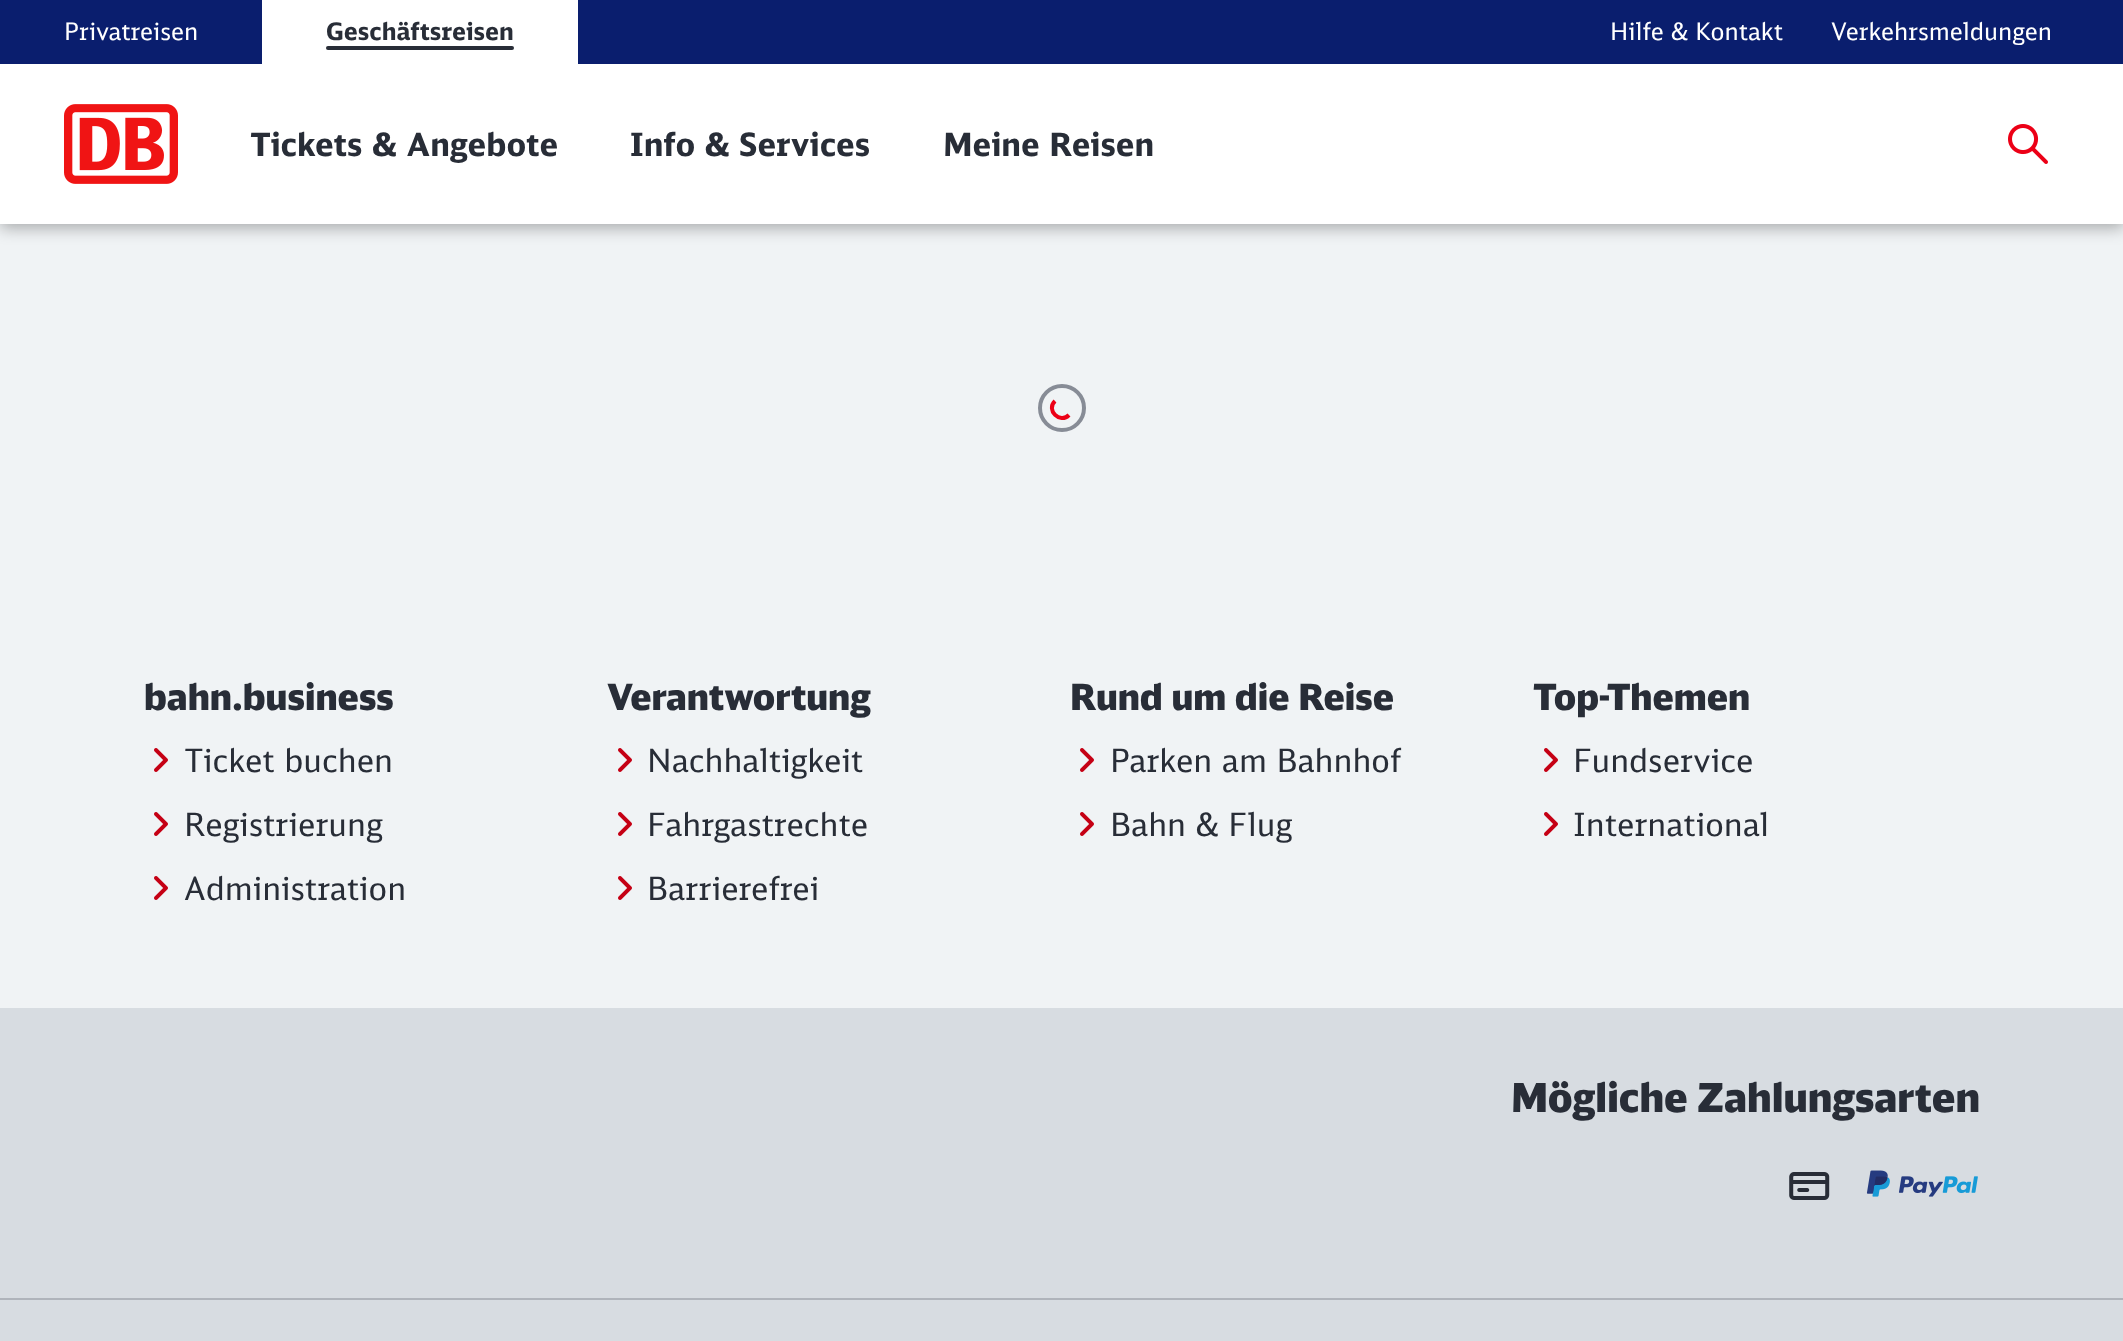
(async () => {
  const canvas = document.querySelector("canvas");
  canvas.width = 2123;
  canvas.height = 1341;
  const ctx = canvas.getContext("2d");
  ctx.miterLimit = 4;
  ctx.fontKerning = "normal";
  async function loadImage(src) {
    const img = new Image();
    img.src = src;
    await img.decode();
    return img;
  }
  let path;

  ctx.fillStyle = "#f0f3f5";
  ctx.fillRect(0, 0, 2123, 1341);
  ctx.fillStyle = "rgba(0, 0, 0, 0.3)";
  ctx.filter = "blur(8px)";
  ctx.beginPath();
  ctx.rect(0, 4, 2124, 224);
  ctx.fill();
  ctx.filter = "none";
  for (const [x, y, w, h, color] of [
    [0, 64, 2123, 160, "#ffffff"],
    [0, 0, 2123, 64, "#0a1e6e"],
    [262, 0, 316, 64, "#ffffff"],
  ]) {
    ctx.fillStyle = color;
    ctx.fillRect(x, y, w, h);
  }
  ctx.fillStyle = "#282d37";
  ctx.beginPath();
  ctx.roundRect(326, 46, 188, 4, 2);
  ctx.fill();
  ctx.drawImage(await loadImage("img/1.png"), 64, 104, 114, 80);
  ctx.drawImage(await loadImage("img/2.png"), 2008, 124, 40, 40);
  ctx.beginPath();
  ctx.arc(1062, 408, 22, 0, Math.PI * 2);
  ctx.strokeStyle = "#878c96";
  ctx.lineWidth = 4;
  ctx.stroke();
  path = new Path2D("M1069 415C1060 424.5 1045.5 410 1055 401");
  ctx.strokeStyle = "#ec0016";
  ctx.stroke(path);
  ctx.drawImage(await loadImage("img/3.png"), 154, 748, 14, 24);
  ctx.drawImage(await loadImage("img/3.png"), 154, 812, 14, 24);
  ctx.drawImage(await loadImage("img/3.png"), 154, 876, 14, 24);
  ctx.drawImage(await loadImage("img/3.png"), 618, 748, 14, 24);
  ctx.drawImage(await loadImage("img/3.png"), 618, 812, 14, 24);
  ctx.drawImage(await loadImage("img/3.png"), 618, 876, 14, 24);
  ctx.drawImage(await loadImage("img/3.png"), 1080, 748, 14, 24);
  ctx.drawImage(await loadImage("img/3.png"), 1080, 812, 14, 24);
  ctx.drawImage(await loadImage("img/3.png"), 1544, 748, 14, 24);
  ctx.drawImage(await loadImage("img/3.png"), 1544, 812, 14, 24);
  ctx.fillStyle = "#d7dce1";
  ctx.fillRect(0, 1008, 2123, 333);
  ctx.fillStyle = "#afb4bb";
  ctx.fillRect(0, 1298, 2123, 2);
  ctx.drawImage(await loadImage("img/4.png"), 1789, 1172, 41, 28);
  ctx.drawImage(await loadImage("img/5.png"), 1866, 1170, 112, 27);
  ctx.font = "24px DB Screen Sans";
  ctx.fillStyle = "#ffffff";
  ctx.fillText("Privatreisen", 64, 40);
  ctx.font = "bold 24px DB Screen Sans";
  ctx.fillStyle = "#282d37";
  ctx.fillText("Geschäftsreisen", 326, 40);
  ctx.font = "24px DB Screen Sans";
  ctx.fillStyle = "#ffffff";
  ctx.fillText("Hilfe & Kontakt", 1610, 40);
  ctx.fillText("Verkehrsmeldungen", 1831, 40);
  ctx.font = "bold 32px DB Screen Sans";
  ctx.fillStyle = "#282d37";
  for (const [text, x, y] of [
    ["Tickets & Angebote", 250, 156],
    ["Info & Services", 630, 156],
    ["Meine Reisen", 943, 156],
  ]) {
    ctx.fillText(text, x, y);
  }
  ctx.font = "900 36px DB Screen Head";
  ctx.fillText("bahn.business", 144, 710);
  ctx.font = "32px DB Screen Sans";
  for (const [text, x, y] of [
    ["Ticket buchen", 184, 772],
    ["Registrierung", 184, 836],
    ["Administration", 184, 900],
  ]) {
    ctx.fillText(text, x, y);
  }
  ctx.font = "900 36px DB Screen Head";
  ctx.fillText("Verantwortung", 607, 710);
  ctx.font = "32px DB Screen Sans";
  for (const [text, x, y] of [
    ["Nachhaltigkeit", 647, 772],
    ["Fahrgastrechte", 647, 836],
    ["Barrierefrei", 647, 900],
  ]) {
    ctx.fillText(text, x, y);
  }
  ctx.font = "900 36px DB Screen Head";
  ctx.fillText("Rund um die Reise", 1070, 710);
  ctx.font = "32px DB Screen Sans";
  ctx.fillText("Parken am Bahnhof", 1110, 772);
  ctx.fillText("Bahn & Flug", 1110, 836);
  ctx.font = "900 36px DB Screen Head";
  ctx.fillText("Top-Themen", 1533, 710);
  ctx.font = "32px DB Screen Sans";
  ctx.fillText("Fundservice", 1573, 772);
  ctx.fillText("International", 1573, 836);
  ctx.font = "900 40px DB Screen Head";
  ctx.fillText("Mögliche Zahlungsarten", 1511, 1112);
})();
